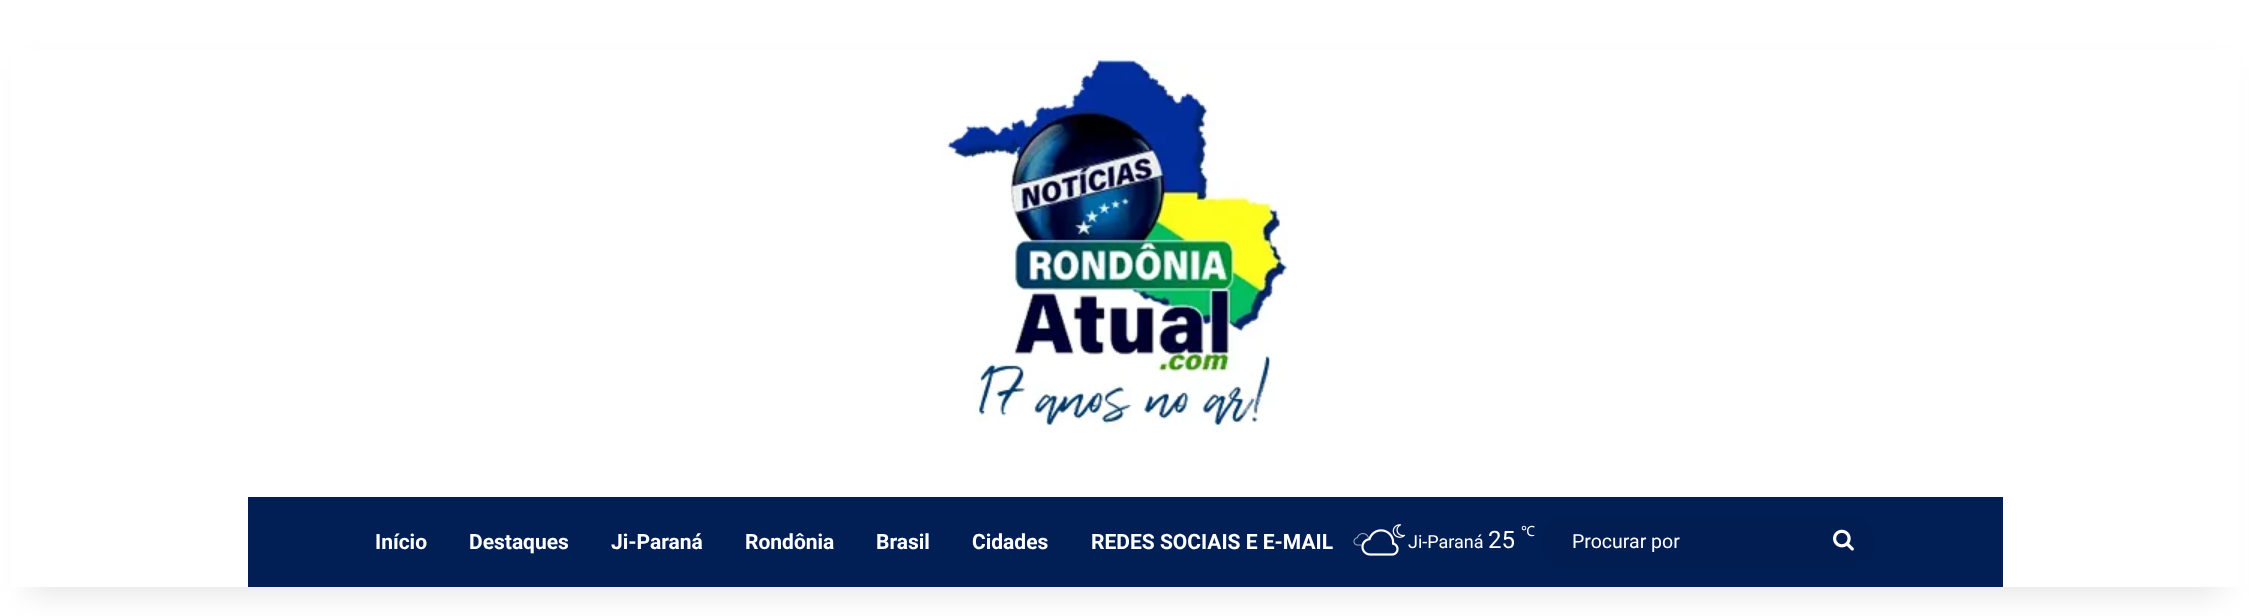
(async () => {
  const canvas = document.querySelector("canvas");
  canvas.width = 2249;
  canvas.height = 616;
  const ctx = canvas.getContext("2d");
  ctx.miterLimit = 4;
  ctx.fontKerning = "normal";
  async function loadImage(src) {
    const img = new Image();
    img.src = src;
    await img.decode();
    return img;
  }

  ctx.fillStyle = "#ffffff";
  ctx.fillRect(0, 0, 2249, 616);
  ctx.fillStyle = "rgba(0, 0, 0, 0.1)";
  ctx.filter = "blur(15px)";
  ctx.beginPath();
  ctx.rect(30, 68, 2190, 526);
  ctx.fill();
  ctx.filter = "none";
  ctx.fillStyle = "#ffffff";
  ctx.fillRect(11, 49, 2228, 538);
  ctx.drawImage(await loadImage("img/1.png"), 941, 60, 347, 373);
  ctx.fillStyle = "#011e55";
  ctx.fillRect(248, 497, 1755, 90);
  ctx.drawImage(await loadImage("img/2.png"), 1392, 524, 14, 14);
  ctx.drawImage(await loadImage("img/4.png"), 1353, 533, 16, 13);
  ctx.drawImage(await loadImage("img/5.png"), 1361, 537, 11, 9);
  ctx.drawImage(await loadImage("img/3.png"), 1361, 529, 38, 27);
  ctx.fillStyle = "#011d51";
  ctx.beginPath();
  ctx.roundRect(1542, 515, 332, 54, 27);
  ctx.fill();
  ctx.drawImage(await loadImage("img/6.png"), 1833, 529, 21, 22);
  ctx.font = "bold 21px Roboto";
  ctx.fillStyle = "#ffffff";
  for (const [text, x, y] of [
    ["Início", 375, 549],
    ["Destaques", 469, 549],
    ["Ji-Paraná", 611, 549],
    ["Rondônia", 745, 549],
    ["Brasil", 876, 549],
    ["Cidades", 972, 549],
    ["REDES SOCIAIS E E-MAIL", 1091, 549],
  ]) {
    ctx.fillText(text, x, y);
  }
  ctx.font = "18px Roboto";
  ctx.fillText("Ji-Paraná", 1408, 548);
  ctx.font = "24px Roboto";
  ctx.fillText("25", 1488, 548);
  ctx.font = "14px Noto Sans";
  ctx.fillText("℃", 1521, 536);
  ctx.font = "19.5px Roboto";
  ctx.fillText("Procurar por", 1572, 548);
})();
